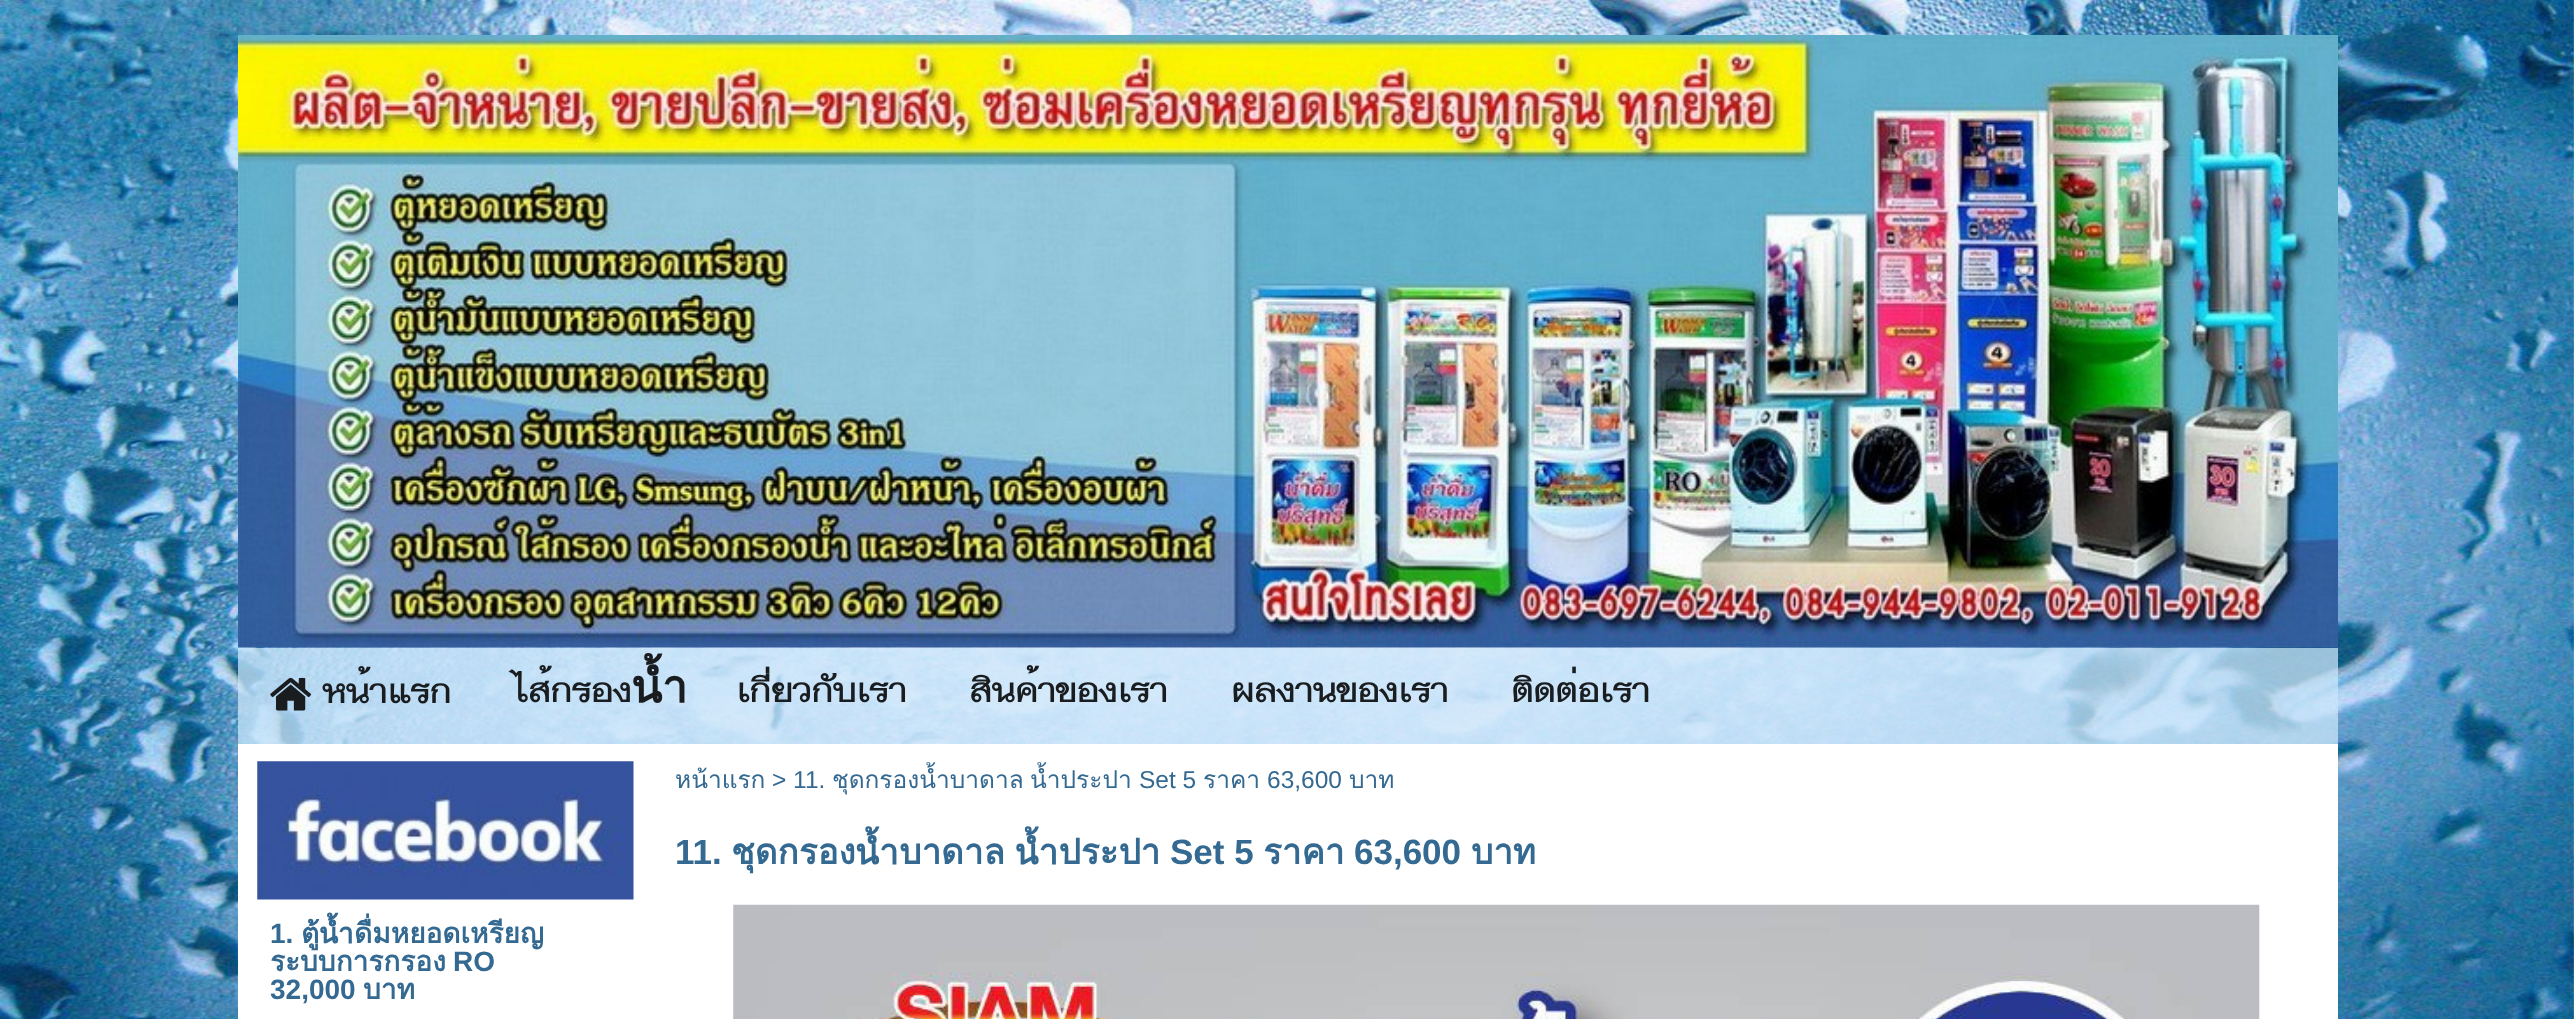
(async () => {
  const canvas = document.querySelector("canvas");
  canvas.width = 2574;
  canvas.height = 1019;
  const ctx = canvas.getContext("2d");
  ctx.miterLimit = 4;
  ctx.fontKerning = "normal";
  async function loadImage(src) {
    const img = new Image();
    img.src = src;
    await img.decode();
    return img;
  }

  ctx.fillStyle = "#ffffff";
  ctx.fillRect(0, 0, 2574, 1019);
  ctx.drawImage(await loadImage("img/1.png"), 0, 0, 2574, 1019);
  ctx.drawImage(await loadImage("img/2.png"), 238, 35, 2100, 613);
  ctx.fillStyle = "rgba(202, 229, 250, 0.75)";
  ctx.fillRect(238, 648, 2100, 96);
  ctx.drawImage(await loadImage("img/3.png"), 270, 677, 42, 34);
  ctx.fillStyle = "#ffffff";
  ctx.fillRect(238, 744, 2100, 275);
  ctx.drawImage(await loadImage("img/4.png"), 257, 761, 377, 139);
  ctx.drawImage(await loadImage("img/5.png"), 733, 904, 1527, 115);
  ctx.font = "bold 45.5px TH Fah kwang";
  ctx.fillStyle = "#1a1d1f";
  for (const [text, x, y] of [
    ["หน้าแรก", 322, 703],
    ["ไส้กรองน้ำ", 514, 702],
    ["เกี่ยวกับเรา", 736, 702],
    ["สินค้าของเรา", 969, 702],
    ["ผลงานของเรา", 1231, 702],
    ["ติดต่อเรา", 1511, 702],
  ]) {
    ctx.fillText(text, x, y);
  }
  ctx.font = "24.5px Loma";
  ctx.fillStyle = "#346991";
  ctx.fillText("หน้าแรก", 675, 788);
  ctx.font = "24.5px Liberation Sans";
  ctx.fillText("> 11.", 772, 788);
  ctx.font = "24.5px Loma";
  ctx.fillText("ชุดกรองน้ำบาดาล", 832, 788);
  ctx.fillText("น้ำประปา", 1030, 788);
  ctx.font = "24.5px Liberation Sans";
  ctx.fillText("Set 5", 1139, 788);
  ctx.font = "24.5px Loma";
  ctx.fillText("ราคา", 1203, 788);
  ctx.font = "24.5px Liberation Sans";
  ctx.fillText("63,600", 1267, 788);
  ctx.font = "24.5px Loma";
  ctx.fillText("บาท", 1349, 788);
  ctx.font = "bold 35px Liberation Sans";
  ctx.fillText("11.", 675, 864);
  ctx.font = "bold 35px Loma";
  ctx.fillText("ชุดกรองน้ำบาดาล", 731, 864);
  ctx.fillText("น้ำประปา", 1015, 864);
  ctx.font = "bold 35px Liberation Sans";
  ctx.fillText("Set 5", 1170, 864);
  ctx.font = "bold 35px Loma";
  ctx.fillText("ราคา", 1263, 864);
  ctx.font = "bold 35px Liberation Sans";
  ctx.fillText("63,600", 1354, 864);
  ctx.font = "bold 35px Loma";
  ctx.fillText("บาท", 1471, 864);
  ctx.font = "bold 28px Liberation Sans";
  ctx.fillText("1.", 270, 943);
  ctx.font = "bold 28px Loma";
  ctx.fillText("ตู้น้ำดื่มหยอดเหรียญ", 301, 943);
  ctx.fillText("ระบบการกรอง", 270, 971);
  ctx.font = "bold 28px Liberation Sans";
  ctx.fillText("RO", 453, 971);
  ctx.fillText("32,000", 270, 999);
  ctx.font = "bold 28px Loma";
  ctx.fillText("บาท", 363, 999);
})();
